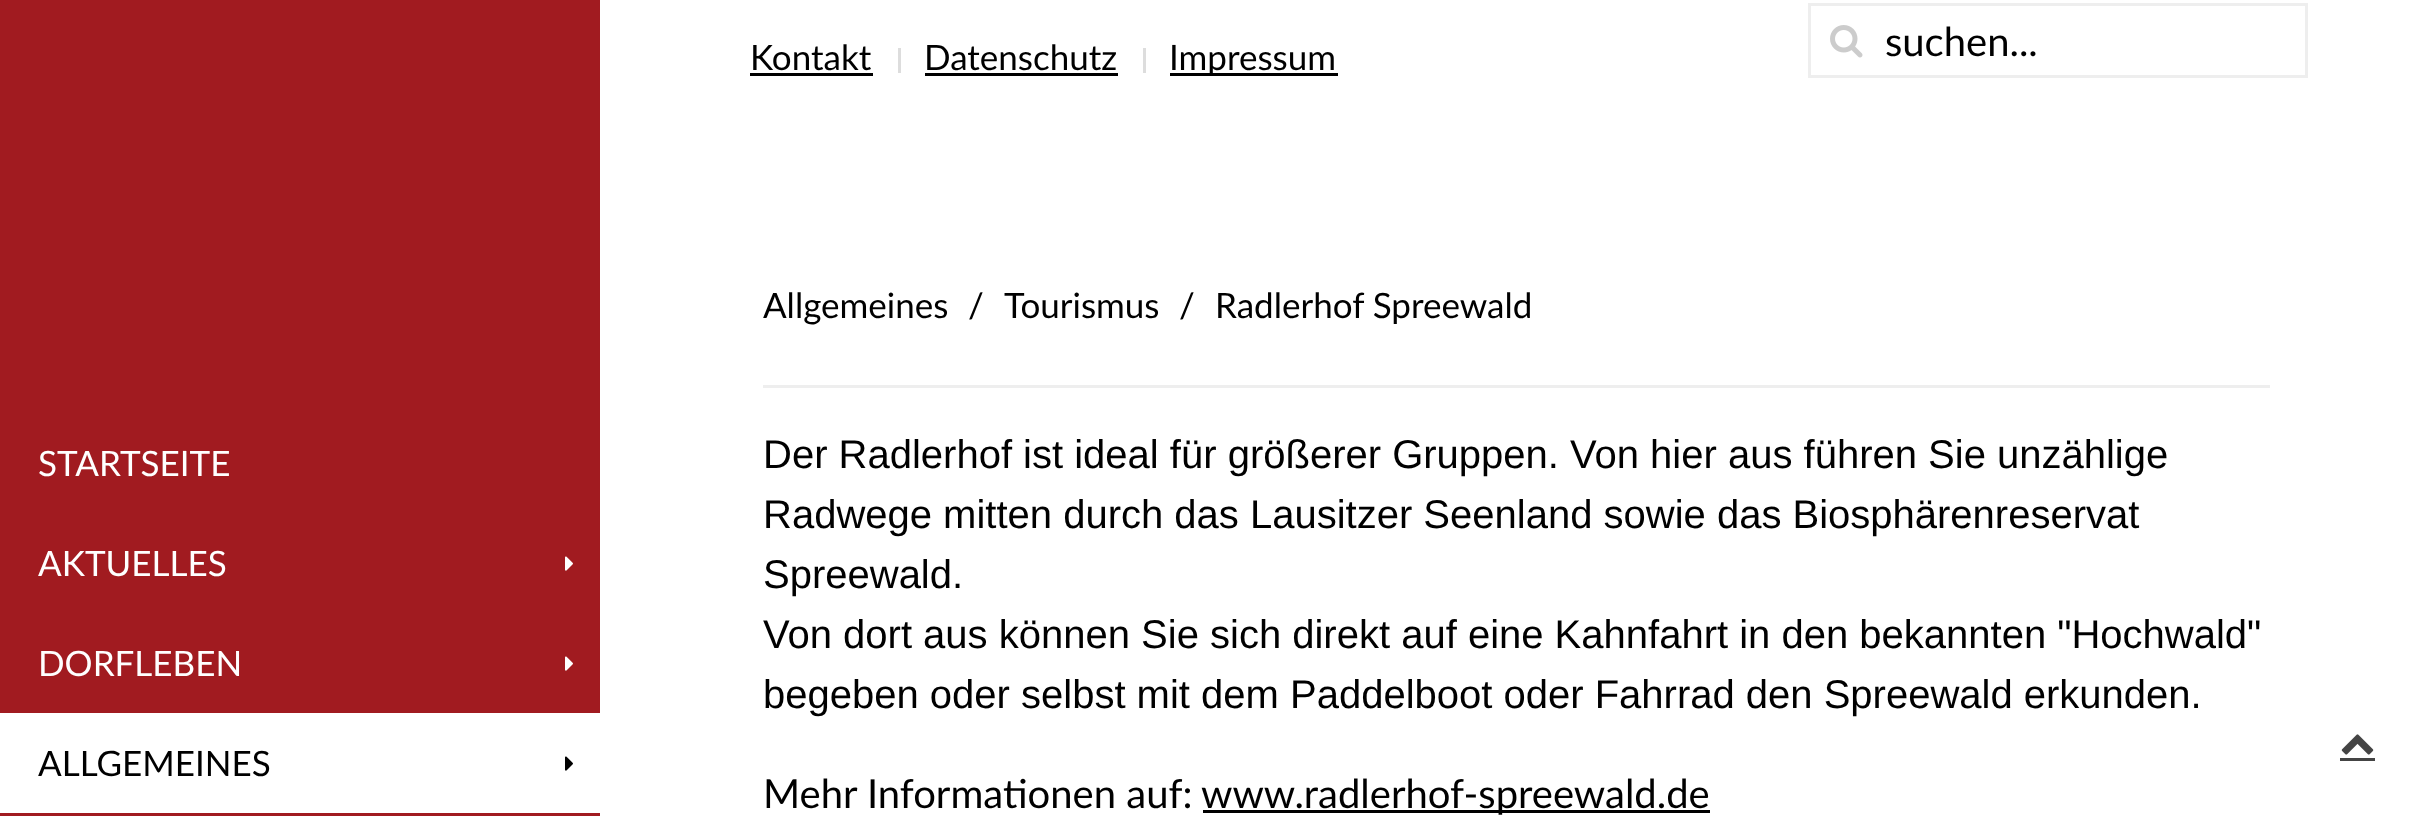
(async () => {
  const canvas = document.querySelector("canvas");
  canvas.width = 2431;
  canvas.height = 816;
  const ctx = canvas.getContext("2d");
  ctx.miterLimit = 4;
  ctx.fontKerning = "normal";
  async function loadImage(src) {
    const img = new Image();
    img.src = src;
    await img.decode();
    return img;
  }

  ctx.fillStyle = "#a11b20";
  ctx.fillRect(0, 0, 2431, 816);
  ctx.drawImage(await loadImage("img/1.png"), 565, 556, 8, 15);
  ctx.drawImage(await loadImage("img/1.png"), 565, 656, 8, 15);
  ctx.fillStyle = "#ffffff";
  ctx.fillRect(0, 713, 600, 100);
  ctx.drawImage(await loadImage("img/2.png"), 565, 756, 8, 15);
  for (const [x, y, w, h, color] of [
    [600, 0, 1831, 816, "#ffffff"],
    [750, 73, 123, 3, "#000000"],
    [898, 48, 3, 25, "#dddddd"],
    [925, 73, 193, 3, "#000000"],
    [1143, 48, 3, 25, "#dddddd"],
    [1170, 73, 168, 3, "#000000"],
  ]) {
    ctx.fillStyle = color;
    ctx.fillRect(x, y, w, h);
  }
  ctx.strokeStyle = "#eeeeee";
  ctx.lineWidth = 3;
  ctx.strokeRect(1809.5, 4.5, 497, 72);
  ctx.drawImage(await loadImage("img/3.png"), 1830, 25, 33, 33);
  ctx.fillStyle = "#eeeeee";
  ctx.fillRect(763, 385, 1507, 3);
  ctx.fillStyle = "#000000";
  ctx.fillRect(1203, 810, 507, 3);
  ctx.drawImage(await loadImage("img/4.png"), 2341, 734, 33, 21);
  ctx.fillStyle = "#444444";
  ctx.fillRect(2340, 758, 35, 3);
  ctx.font = "35px Lato";
  ctx.fillStyle = "#ffffff";
  for (const [text, x, y] of [
    ["STARTSEITE", 38, 476],
    ["AKTUELLES", 38, 576],
    ["DORFLEBEN", 38, 676],
  ]) {
    ctx.fillText(text, x, y);
  }
  ctx.fillStyle = "#000000";
  for (const [text, x, y] of [
    ["ALLGEMEINES", 38, 776],
    ["Kontakt", 750, 70],
    ["Datenschutz", 924, 70],
    ["Impressum", 1169, 70],
  ]) {
    ctx.fillText(text, x, y);
  }
  ctx.font = "40px Lato";
  ctx.fillText("suchen...", 1885, 56);
  ctx.font = "35px Lato";
  for (const [text, x, y] of [
    ["Allgemeines", 763, 318],
    ["/", 968, 318],
    ["Tourismus", 1004, 318],
    ["/", 1179, 318],
    ["Radlerhof Spreewald", 1215, 318],
  ]) {
    ctx.fillText(text, x, y);
  }
  ctx.font = "40px Liberation Sans";
  for (const [text, x, y] of [
    ["Der Radlerhof ist ideal für größerer Gruppen. Von hier aus führen Sie unzählige", 763, 468],
    ["Radwege mitten durch das Lausitzer Seenland sowie das Biosphärenreservat", 763, 528],
    ["Spreewald.", 763, 588],
    ["Von dort aus können Sie sich direkt auf eine Kahnfahrt in den bekannten \"Hochwald\"", 763, 648],
    ["begeben oder selbst mit dem Paddelboot oder Fahrrad den Spreewald erkunden.", 763, 708],
  ]) {
    ctx.fillText(text, x, y);
  }
  ctx.font = "40px Lato";
  ctx.fillText("Mehr Informationen auf:", 763, 808);
  ctx.fillText("www.radlerhof-spreewald.de", 1201, 808);
})();
